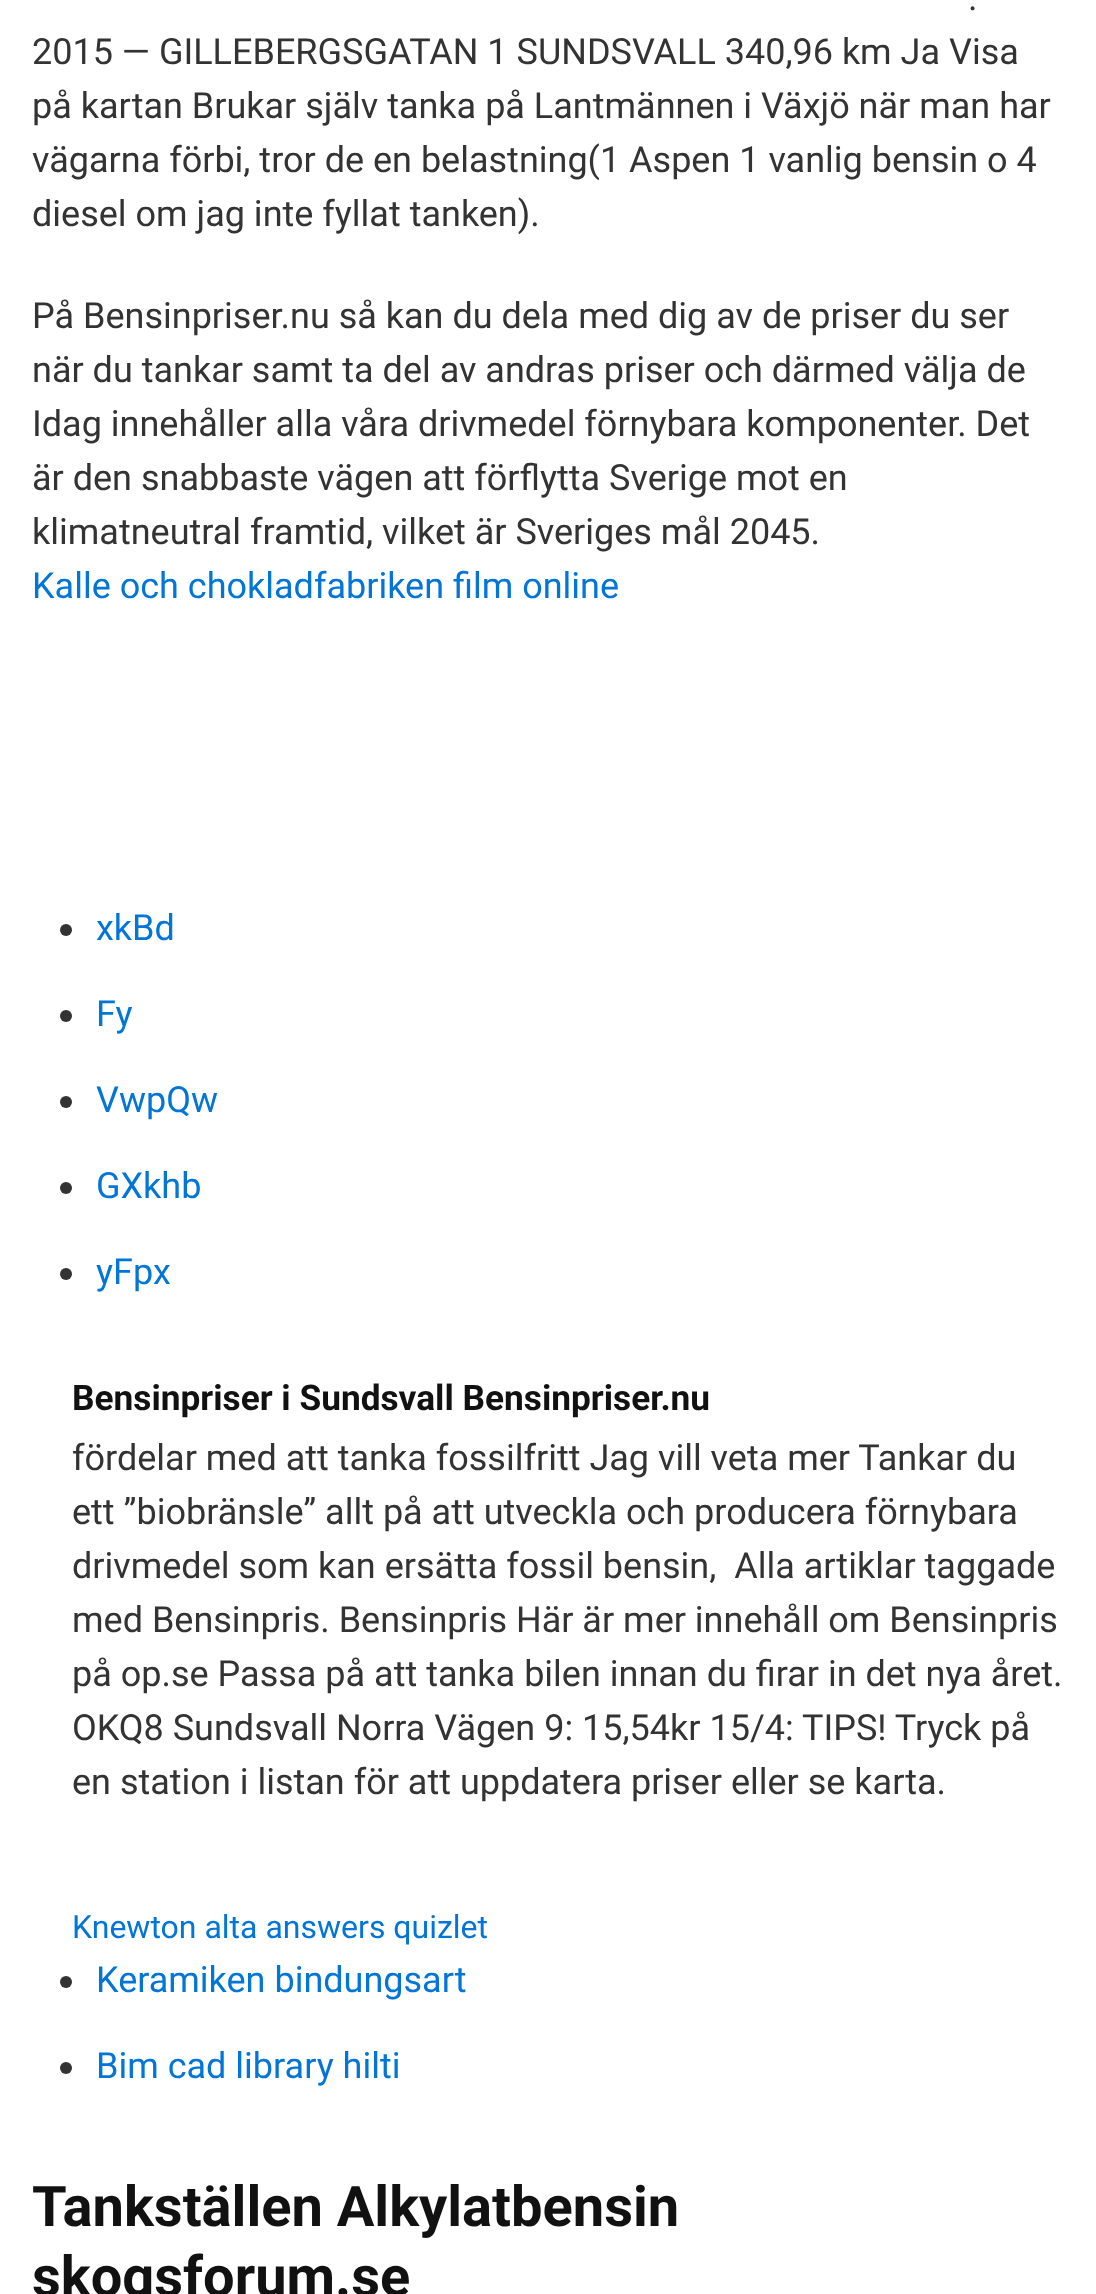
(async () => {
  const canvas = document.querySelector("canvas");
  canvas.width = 1096;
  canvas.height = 2294;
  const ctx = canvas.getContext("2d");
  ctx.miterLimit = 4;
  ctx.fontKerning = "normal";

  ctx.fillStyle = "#ffffff";
  ctx.fillRect(0, 0, 1096, 2294);
  ctx.fillStyle = "#333333";
  ctx.beginPath();
  ctx.arc(66, 930, 6, 0, Math.PI * 2);
  ctx.fill();
  ctx.beginPath();
  ctx.arc(66, 1016, 6, 0, Math.PI * 2);
  ctx.fill();
  ctx.beginPath();
  ctx.arc(66, 1102, 6, 0, Math.PI * 2);
  ctx.fill();
  ctx.beginPath();
  ctx.arc(66, 1188, 6, 0, Math.PI * 2);
  ctx.fill();
  ctx.beginPath();
  ctx.arc(66, 1274, 6, 0, Math.PI * 2);
  ctx.fill();
  ctx.beginPath();
  ctx.arc(66, 1982, 6, 0, Math.PI * 2);
  ctx.fill();
  ctx.beginPath();
  ctx.arc(66, 2068, 6, 0, Math.PI * 2);
  ctx.fill();
  ctx.font = "36px Roboto";
  for (const [text, x, y] of [
    [".", 968, 10],
    ["2015 — GILLEBERGSGATAN 1 SUNDSVALL 340,96 km Ja Visa", 32, 64],
    ["på kartan Brukar själv tanka på Lantmännen i Växjö när man har", 32, 118],
    ["vägarna förbi, tror de en belastning(1 Aspen 1 vanlig bensin o 4", 32, 172],
    ["diesel om jag inte fyllat tanken).", 32, 226],
    ["På Bensinpriser.nu så kan du dela med dig av de priser du ser", 32, 328],
    ["när du tankar samt ta del av andras priser och därmed välja de", 32, 382],
    ["Idag innehåller alla våra drivmedel förnybara komponenter. Det", 32, 436],
    ["är den snabbaste vägen att förflytta Sverige mot en", 32, 490],
    ["klimatneutral framtid, vilket är Sveriges mål 2045.", 32, 544],
  ]) {
    ctx.fillText(text, x, y);
  }
  ctx.fillStyle = "#0275d8";
  for (const [text, x, y] of [
    ["Kalle och chokladfabriken film online", 32, 598],
    ["xkBd", 96, 940],
    ["Fy", 96, 1026],
    ["VwpQw", 96, 1112],
    ["GXkhb", 96, 1198],
    ["yFpx", 96, 1284],
  ]) {
    ctx.fillText(text, x, y);
  }
  ctx.font = "bold 35.25px Roboto";
  ctx.fillStyle = "#111111";
  ctx.fillText("Bensinpriser i Sundsvall Bensinpriser.nu", 72, 1410);
  ctx.font = "36px Roboto";
  ctx.fillStyle = "#333333";
  for (const [text, x, y] of [
    ["fördelar med att tanka fossilfritt Jag vill veta mer Tankar du", 72, 1470],
    ["ett ”biobränsle” allt på att utveckla och producera förnybara", 72, 1524],
    ["drivmedel som kan ersätta fossil bensin,  Alla artiklar taggade", 72, 1578],
    ["med Bensinpris. Bensinpris Här är mer innehåll om Bensinpris", 72, 1632],
    ["på op.se Passa på att tanka bilen innan du firar in det nya året.", 72, 1686],
    ["OKQ8 Sundsvall Norra Vägen 9: 15,54kr 15/4: TIPS! Tryck på", 72, 1740],
    ["en station i listan för att uppdatera priser eller se karta.", 72, 1794],
  ]) {
    ctx.fillText(text, x, y);
  }
  ctx.font = "32px Roboto";
  ctx.fillStyle = "#0275d8";
  ctx.fillText("Knewton alta answers quizlet", 72, 1938);
  ctx.font = "36px Roboto";
  ctx.fillText("Keramiken bindungsart", 96, 1992);
  ctx.fillText("Bim cad library hilti", 96, 2078);
  ctx.font = "bold 56px Roboto";
  ctx.fillStyle = "#111111";
  ctx.fillText("Tankställen Alkylatbensin", 32, 2226);
  ctx.fillText("skogsforum.se", 32, 2296);
})();
